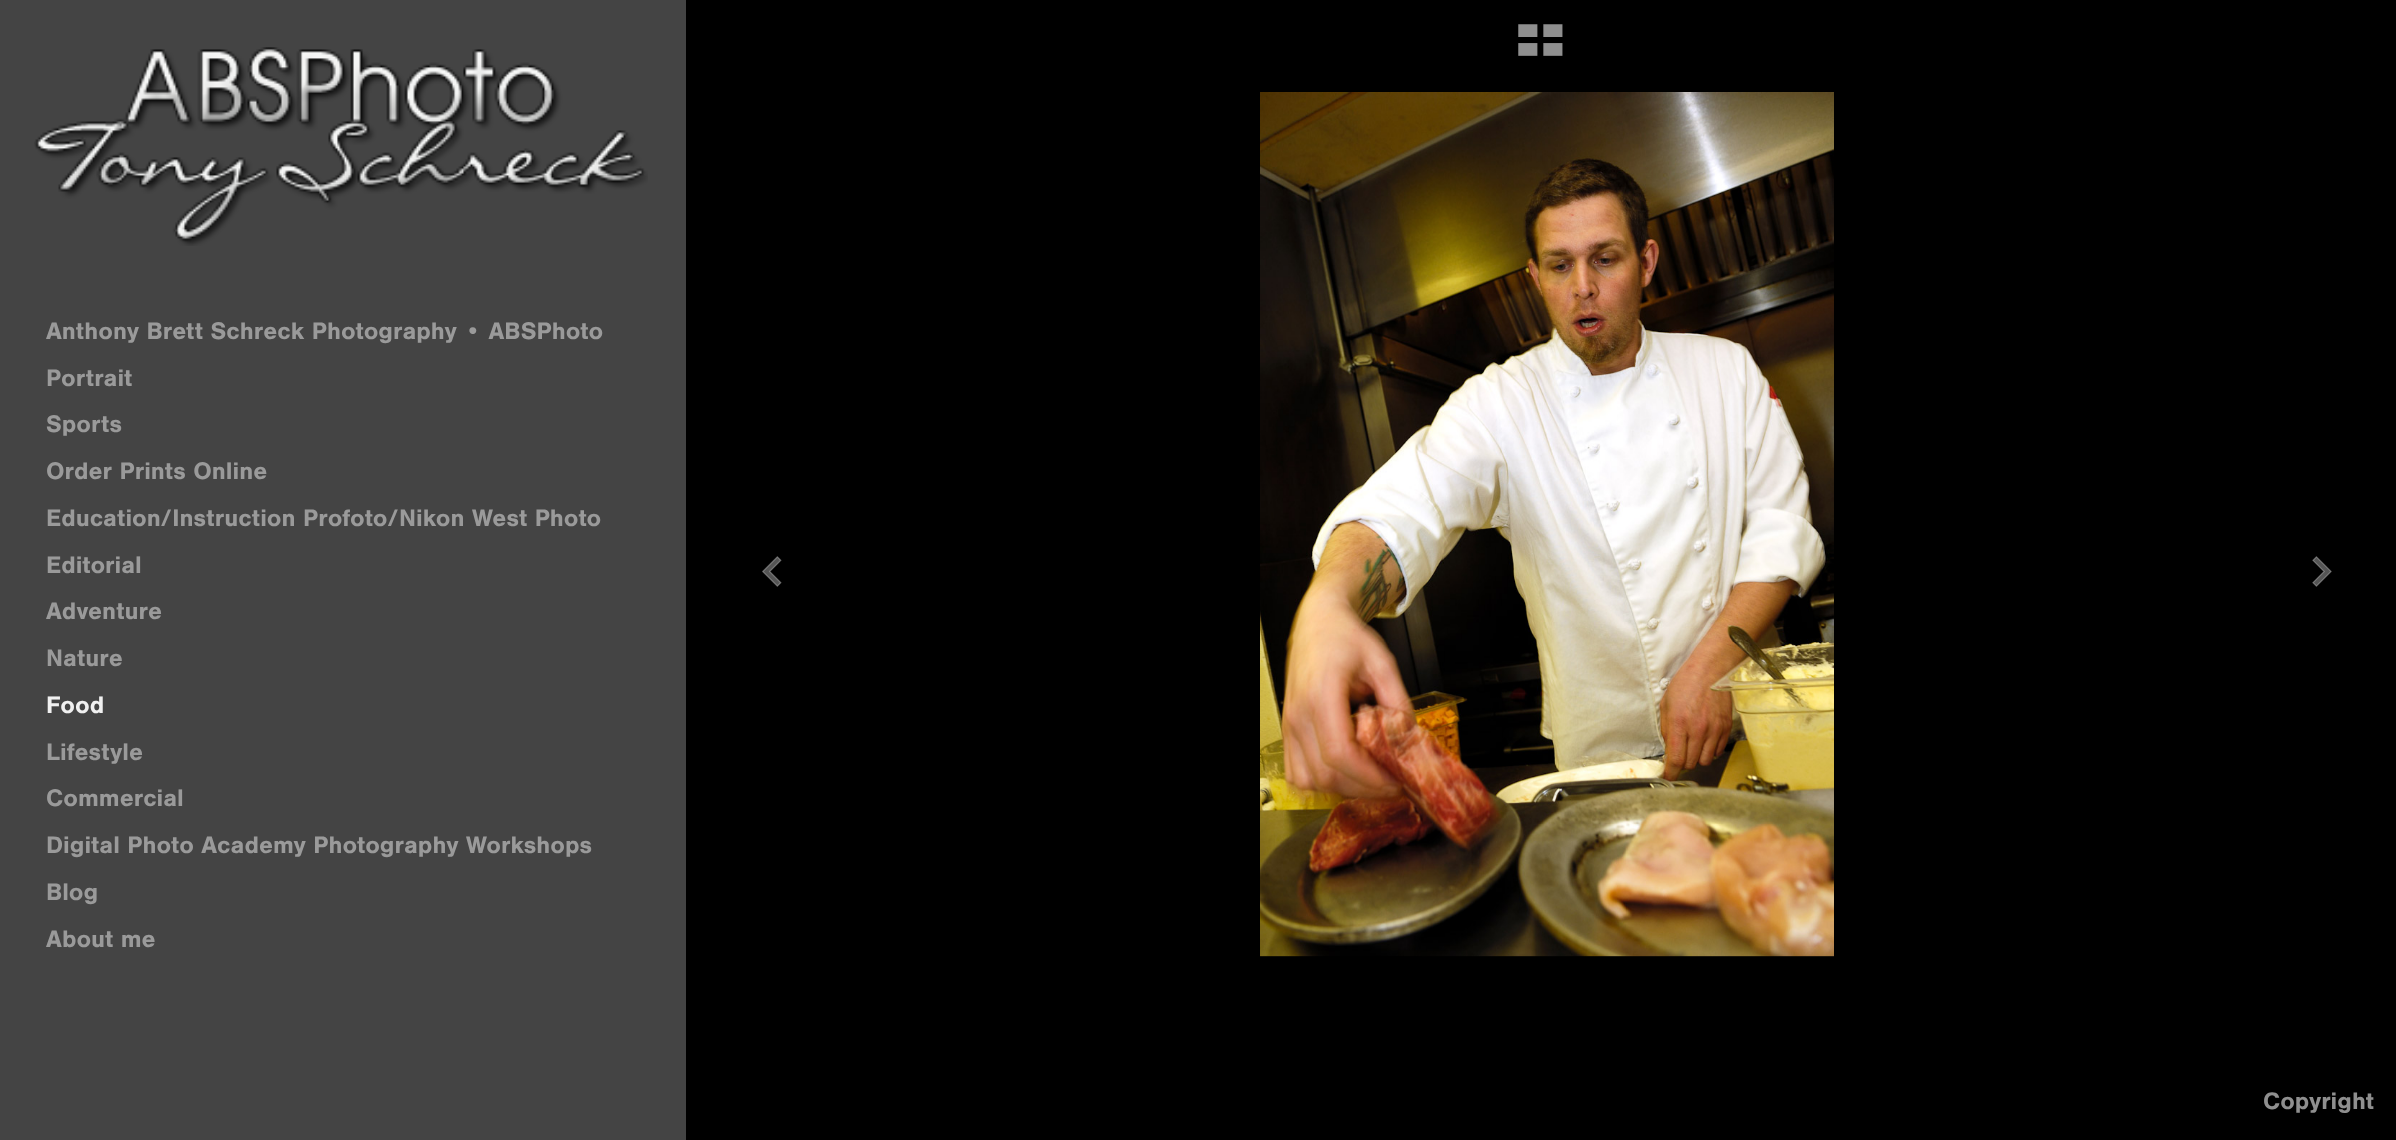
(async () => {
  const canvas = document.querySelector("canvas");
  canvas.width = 2396;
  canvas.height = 1140;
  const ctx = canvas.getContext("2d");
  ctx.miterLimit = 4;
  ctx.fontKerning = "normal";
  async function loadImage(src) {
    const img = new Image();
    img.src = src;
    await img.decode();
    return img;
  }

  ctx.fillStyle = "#000000";
  ctx.fillRect(0, 0, 2396, 1140);
  ctx.drawImage(await loadImage("img/1.png"), 1518, 24, 45, 32);
  ctx.fillStyle = "#444444";
  ctx.fillRect(0, 0, 686, 1140);
  ctx.drawImage(await loadImage("img/2.png"), 34, 47, 614, 199);
  ctx.drawImage(await loadImage("img/3.png"), 762, 556, 20, 31);
  ctx.drawImage(await loadImage("img/4.png"), 1260, 92, 574, 865);
  ctx.drawImage(await loadImage("img/5.png"), 2312, 556, 20, 31);
  ctx.font = "bold 24.9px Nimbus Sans";
  ctx.fillStyle = "#9a9a9a";
  for (const [text, x, y] of [
    ["Anthony Brett Schreck Photography • ABSPhoto", 46, 339],
    ["Portrait", 46, 386],
    ["Sports", 46, 432],
    ["Order Prints Online", 46, 479],
    ["Education/Instruction Profoto/Nikon West Photo", 46, 526],
    ["Editorial", 46, 573],
    ["Adventure", 46, 619],
    ["Nature", 46, 666],
  ]) {
    ctx.fillText(text, x, y);
  }
  ctx.fillStyle = "#f0f0f0";
  ctx.fillText("Food", 46, 713);
  ctx.fillStyle = "#9a9a9a";
  for (const [text, x, y] of [
    ["Lifestyle", 46, 760],
    ["Commercial", 46, 806],
    ["Digital Photo Academy Photography Workshops", 46, 853],
    ["Blog", 46, 900],
    ["About me", 46, 947],
  ]) {
    ctx.fillText(text, x, y);
  }
  ctx.font = "bold 24.75px Nimbus Sans";
  ctx.fillStyle = "#8f8f8f";
  ctx.fillText("Copyright", 2263, 1109);
})();
